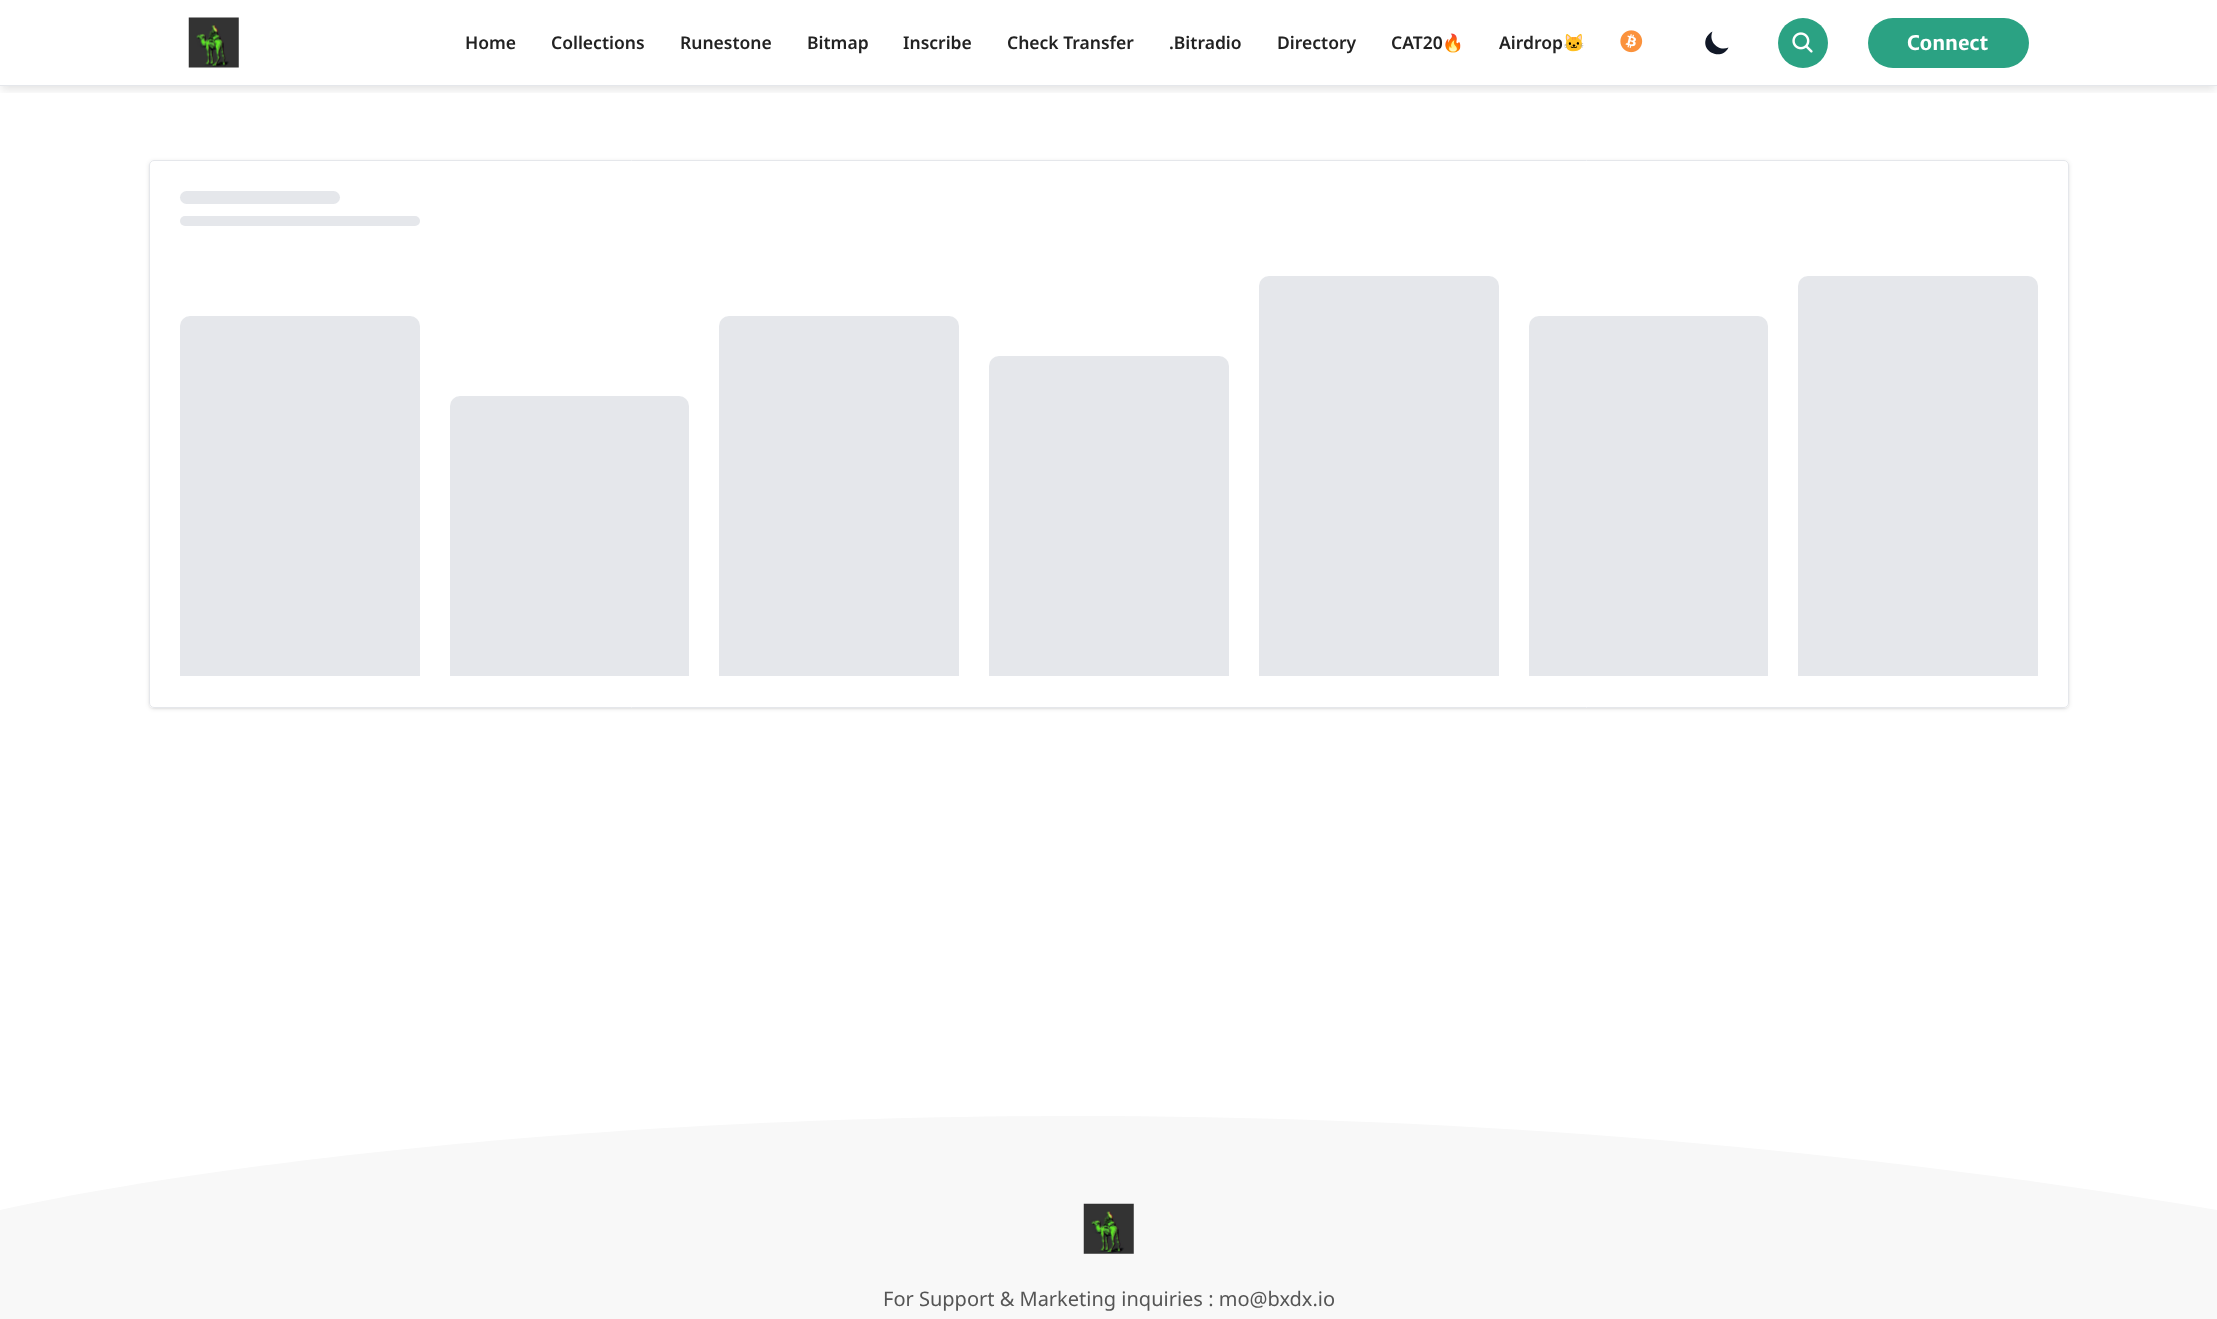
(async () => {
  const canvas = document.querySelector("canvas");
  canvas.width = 2217;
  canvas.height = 1319;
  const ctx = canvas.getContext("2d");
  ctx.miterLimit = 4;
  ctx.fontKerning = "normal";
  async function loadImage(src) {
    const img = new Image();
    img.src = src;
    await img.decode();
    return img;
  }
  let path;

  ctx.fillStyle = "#ffffff";
  ctx.fillRect(0, 0, 2217, 1319);
  ctx.save();
  ctx.beginPath();
  ctx.rect(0, 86, 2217, 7);
  ctx.clip();
  ctx.fillStyle = "rgba(0, 0, 0, 0.1)";
  ctx.filter = "blur(4px)";
  ctx.beginPath();
  ctx.rect(1, 6, 2215, 84);
  ctx.fill();
  ctx.filter = "none";
  ctx.restore();
  ctx.fillStyle = "#e5e7eb";
  ctx.fillRect(0, 85, 2217, 1);
  ctx.drawImage(await loadImage("img/1.png"), 188, 17, 51, 51);
  ctx.drawImage(await loadImage("img/2.png"), 1620, 30, 23, 23);
  ctx.fillStyle = "#111827";
  path = new Path2D("M1728.5 47.5C1718.5 52 1708 41.5 1712.5 31.5C1709.5 33 1707.5 35.5 1706 38.5C1701 52.5 1722 61 1728.5 47.5Z");
  ctx.fill(path);
  ctx.fillStyle = "#2ba283";
  ctx.beginPath();
  ctx.arc(1803, 43, 25, 0, Math.PI * 2);
  ctx.fill();
  ctx.drawImage(await loadImage("img/3.png"), 1792, 32, 21, 21);
  ctx.beginPath();
  ctx.roundRect(1868, 18, 161, 50, 25);
  ctx.fill();
  ctx.save();
  path = new Path2D("M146 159H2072V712H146ZM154 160H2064C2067 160 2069 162 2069 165V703C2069 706 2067 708 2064 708H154C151 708 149 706 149 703V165C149 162 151 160 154 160Z");
  ctx.clip(path, "evenodd");
  ctx.fillStyle = "rgba(0, 0, 0, 0.1)";
  ctx.filter = "blur(1px)";
  ctx.beginPath();
  ctx.roundRect(150, 163, 1918, 545, 4);
  ctx.fill();
  ctx.filter = "none";
  ctx.restore();
  ctx.save();
  path = new Path2D("M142 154H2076V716H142ZM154 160H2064C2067 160 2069 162 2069 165V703C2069 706 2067 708 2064 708H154C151 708 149 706 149 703V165C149 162 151 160 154 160Z");
  ctx.clip(path, "evenodd");
  ctx.fillStyle = "rgba(0, 0, 0, 0.1)";
  ctx.filter = "blur(2px)";
  ctx.beginPath();
  ctx.roundRect(149, 161, 1920, 548, 5);
  ctx.fill();
  ctx.filter = "none";
  ctx.restore();
  ctx.beginPath();
  ctx.roundRect(149.5, 160.5, 1919, 547, 4.5);
  ctx.strokeStyle = "#e5e7eb";
  ctx.stroke();
  ctx.fillStyle = "#e5e7eb";
  ctx.beginPath();
  ctx.roundRect(180, 191, 160, 13, 6.5);
  ctx.fill();
  ctx.beginPath();
  ctx.roundRect(180, 216, 240, 10, 5);
  ctx.fill();
  ctx.beginPath();
  ctx.roundRect(180, 316, 240, 360, [10, 10, 0, 0]);
  ctx.fill();
  ctx.beginPath();
  ctx.roundRect(450, 396, 239, 280, [10, 10, 0, 0]);
  ctx.fill();
  ctx.beginPath();
  ctx.roundRect(719, 316, 240, 360, [10, 10, 0, 0]);
  ctx.fill();
  ctx.beginPath();
  ctx.roundRect(989, 356, 240, 320, [10, 10, 0, 0]);
  ctx.fill();
  ctx.beginPath();
  ctx.roundRect(1259, 276, 240, 400, [10, 10, 0, 0]);
  ctx.fill();
  ctx.beginPath();
  ctx.roundRect(1529, 316, 239, 360, [10, 10, 0, 0]);
  ctx.fill();
  ctx.beginPath();
  ctx.roundRect(1798, 276, 240, 400, [10, 10, 0, 0]);
  ctx.fill();
  ctx.fillStyle = "#f8f8f8";
  path = new Path2D("M0 1210V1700H2217V1210C1214 1040 321 1139 0 1210Z");
  ctx.fill(path);
  ctx.drawImage(await loadImage("img/4.png"), 1083, 1203, 51, 51);
  ctx.font = "600 17.5px Noto Sans";
  ctx.fillStyle = "#222222";
  for (const [text, x, y] of [
    ["Home", 465, 49],
    ["Collections", 551, 49],
    ["Runestone", 680, 49],
    ["Bitmap", 807, 49],
    ["Inscribe", 903, 49],
    ["Check Transfer", 1007, 49],
    [".Bitradio", 1169, 49],
    ["Directory", 1277, 49],
    ["CAT20", 1391, 49],
  ]) {
    ctx.fillText(text, x, y);
  }
  ctx.font = "17.5px Noto Color Emoji";
  ctx.fillText("🔥", 1442, 49);
  ctx.font = "600 17.5px Noto Sans";
  ctx.fillText("Airdrop", 1499, 49);
  ctx.font = "17.5px Noto Color Emoji";
  ctx.fillText("🐱", 1563, 49);
  ctx.font = "bold 20px Merriweather Sans";
  ctx.fillStyle = "#ffffff";
  ctx.fillText("Connect", 1907, 50);
  ctx.font = "20px Noto Sans";
  ctx.fillStyle = "#555555";
  ctx.fillText("For Support & Marketing inquiries : mo@bxdx.io", 883, 1306);
})();
